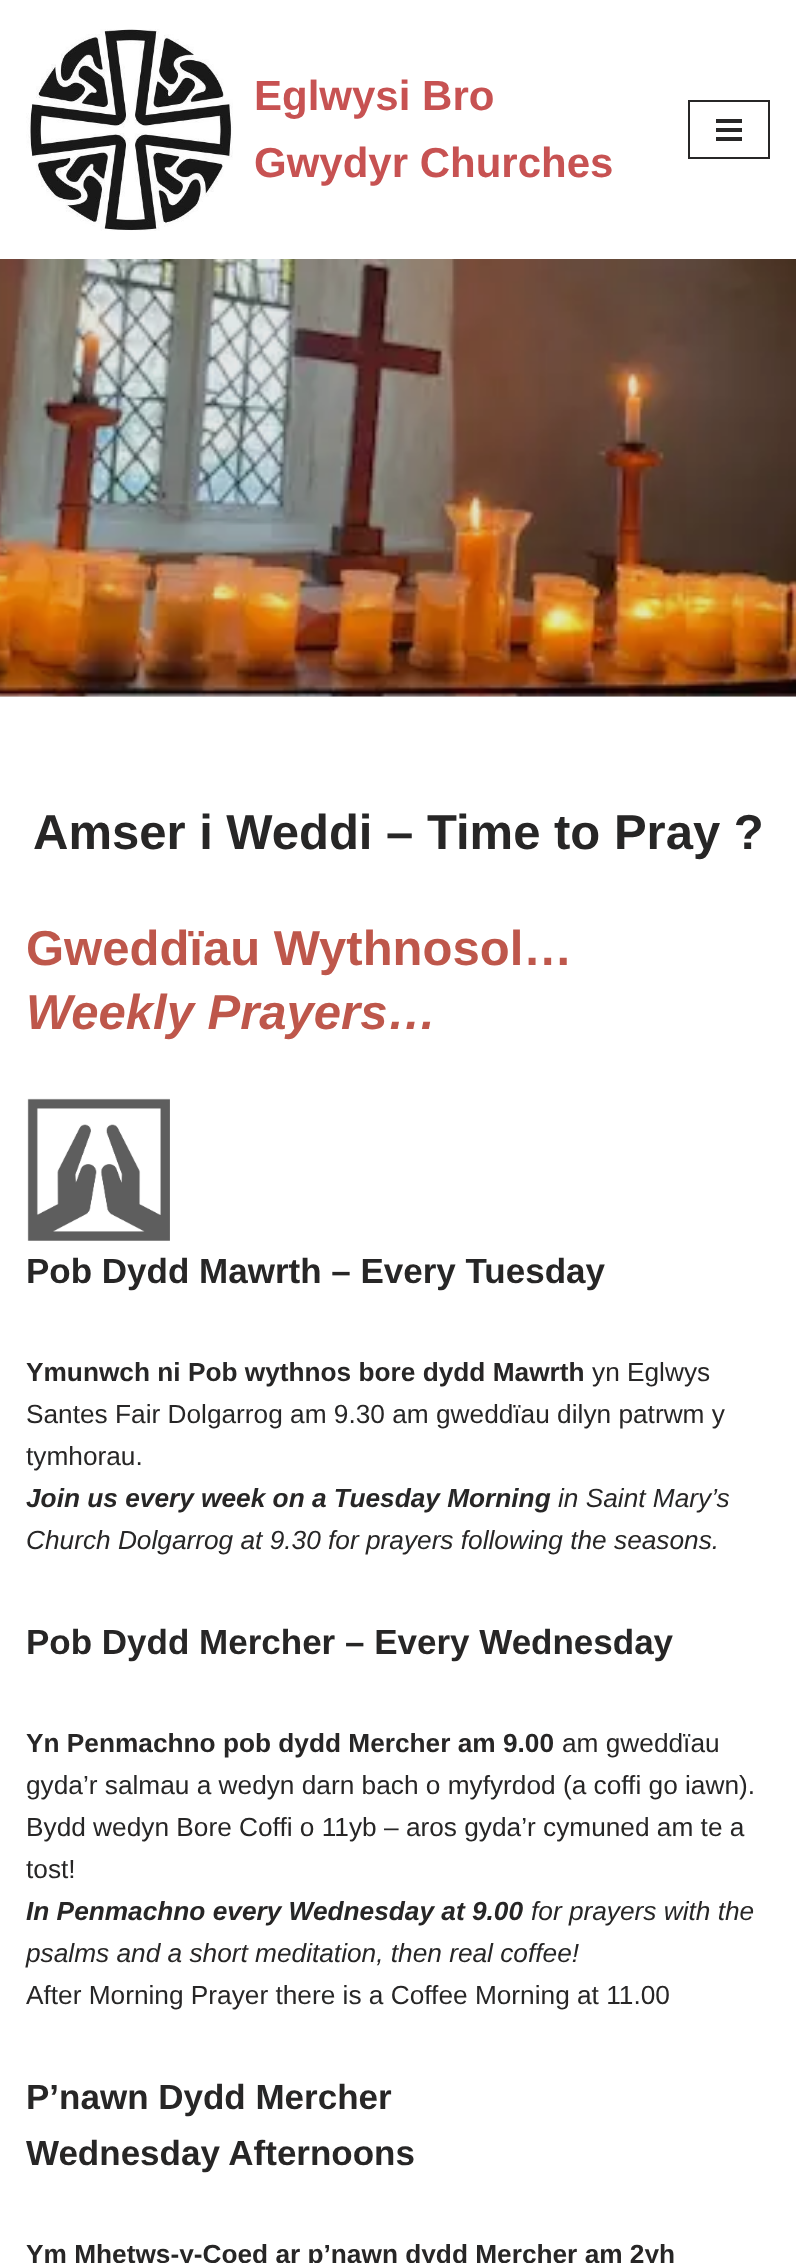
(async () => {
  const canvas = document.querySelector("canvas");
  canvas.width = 796;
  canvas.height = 2263;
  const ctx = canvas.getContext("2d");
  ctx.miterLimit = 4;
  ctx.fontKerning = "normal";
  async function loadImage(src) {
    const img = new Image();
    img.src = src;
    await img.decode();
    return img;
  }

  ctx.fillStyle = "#ffffff";
  ctx.fillRect(0, 0, 796, 2263);
  ctx.fillStyle = "#e7e7e7";
  ctx.fillRect(0, 696, 796, 1);
  ctx.drawImage(await loadImage("img/1.png"), 26, 29, 207, 202);
  ctx.strokeStyle = "#272626";
  ctx.lineWidth = 2;
  ctx.strokeRect(689, 101, 80, 57);
  for (const [x, y, w, h, color] of [
    [716, 119, 26, 4, "#272626"],
    [716, 128, 26, 4, "#272626"],
    [716, 137, 26, 4, "#272626"],
  ]) {
    ctx.fillStyle = color;
    ctx.fillRect(x, y, w, h);
  }
  ctx.drawImage(await loadImage("img/2.png"), 0, 259, 796, 438);
  ctx.drawImage(await loadImage("img/3.png"), 27, 1098, 143, 143);
  ctx.font = "bold 42px Liberation Sans";
  ctx.fillStyle = "#c75252";
  ctx.fillText("Eglwysi Bro", 254, 110);
  ctx.fillText("Gwydyr Churches", 254, 177);
  ctx.font = "bold 49px Liberation Sans";
  ctx.fillStyle = "#272626";
  ctx.fillText("Amser i Weddi – Time to Pray ?", 33, 849);
  ctx.fillStyle = "#be574b";
  ctx.fillText("Gweddïau Wythnosol…", 26, 965);
  ctx.font = "italic bold 49px Liberation Sans";
  ctx.fillText("Weekly Prayers…", 26, 1029);
  ctx.font = "bold 35px Liberation Sans";
  ctx.fillStyle = "#272626";
  ctx.fillText("Pob Dydd Mawrth – Every Tuesday", 26, 1283);
  ctx.font = "bold 26.25px Liberation Sans";
  ctx.fillText("Ymunwch ni Pob wythnos bore dydd Mawrth", 26, 1381);
  ctx.font = "26.25px Liberation Sans";
  for (const [text, x, y] of [
    ["yn Eglwys", 592, 1381],
    ["Santes Fair Dolgarrog am 9.30 am gweddïau dilyn patrwm y", 26, 1423],
    ["tymhorau.", 26, 1465],
  ]) {
    ctx.fillText(text, x, y);
  }
  ctx.font = "italic bold 26.25px Liberation Sans";
  ctx.fillText("Join us every week on a Tuesday Morning", 26, 1507);
  ctx.font = "italic 26.25px Liberation Sans";
  ctx.fillText("in Saint Mary’s", 558, 1507);
  ctx.fillText("Church Dolgarrog at 9.30 for prayers following the seasons.", 26, 1549);
  ctx.font = "bold 35px Liberation Sans";
  ctx.fillText("Pob Dydd Mercher – Every Wednesday", 26, 1654);
  ctx.font = "bold 26.25px Liberation Sans";
  ctx.fillText("Yn Penmachno pob dydd Mercher am 9.00", 26, 1752);
  ctx.font = "26.25px Liberation Sans";
  for (const [text, x, y] of [
    ["am gweddïau", 562, 1752],
    ["gyda’r salmau a wedyn darn bach o myfyrdod (a coffi go iawn).", 26, 1794],
    ["Bydd wedyn Bore Coffi o 11yb – aros gyda’r cymuned am te a", 26, 1836],
    ["tost!", 26, 1878],
  ]) {
    ctx.fillText(text, x, y);
  }
  ctx.font = "italic bold 26.25px Liberation Sans";
  ctx.fillText("In Penmachno every Wednesday at 9.00", 26, 1920);
  ctx.font = "italic 26.25px Liberation Sans";
  ctx.fillText("for prayers with the", 531, 1920);
  ctx.fillText("psalms and a short meditation, then real coffee!", 26, 1962);
  ctx.font = "26.25px Liberation Sans";
  ctx.fillText("After Morning Prayer there is a Coffee Morning at 11.00", 26, 2004);
  ctx.font = "bold 35px Liberation Sans";
  ctx.fillText("P’nawn Dydd Mercher", 26, 2109);
  ctx.fillText("Wednesday Afternoons", 26, 2165);
  ctx.font = "bold 26.25px Liberation Sans";
  ctx.fillText("Ym Mhetws-y-Coed ar p’nawn dydd Mercher am 2yh", 26, 2263);
})();
